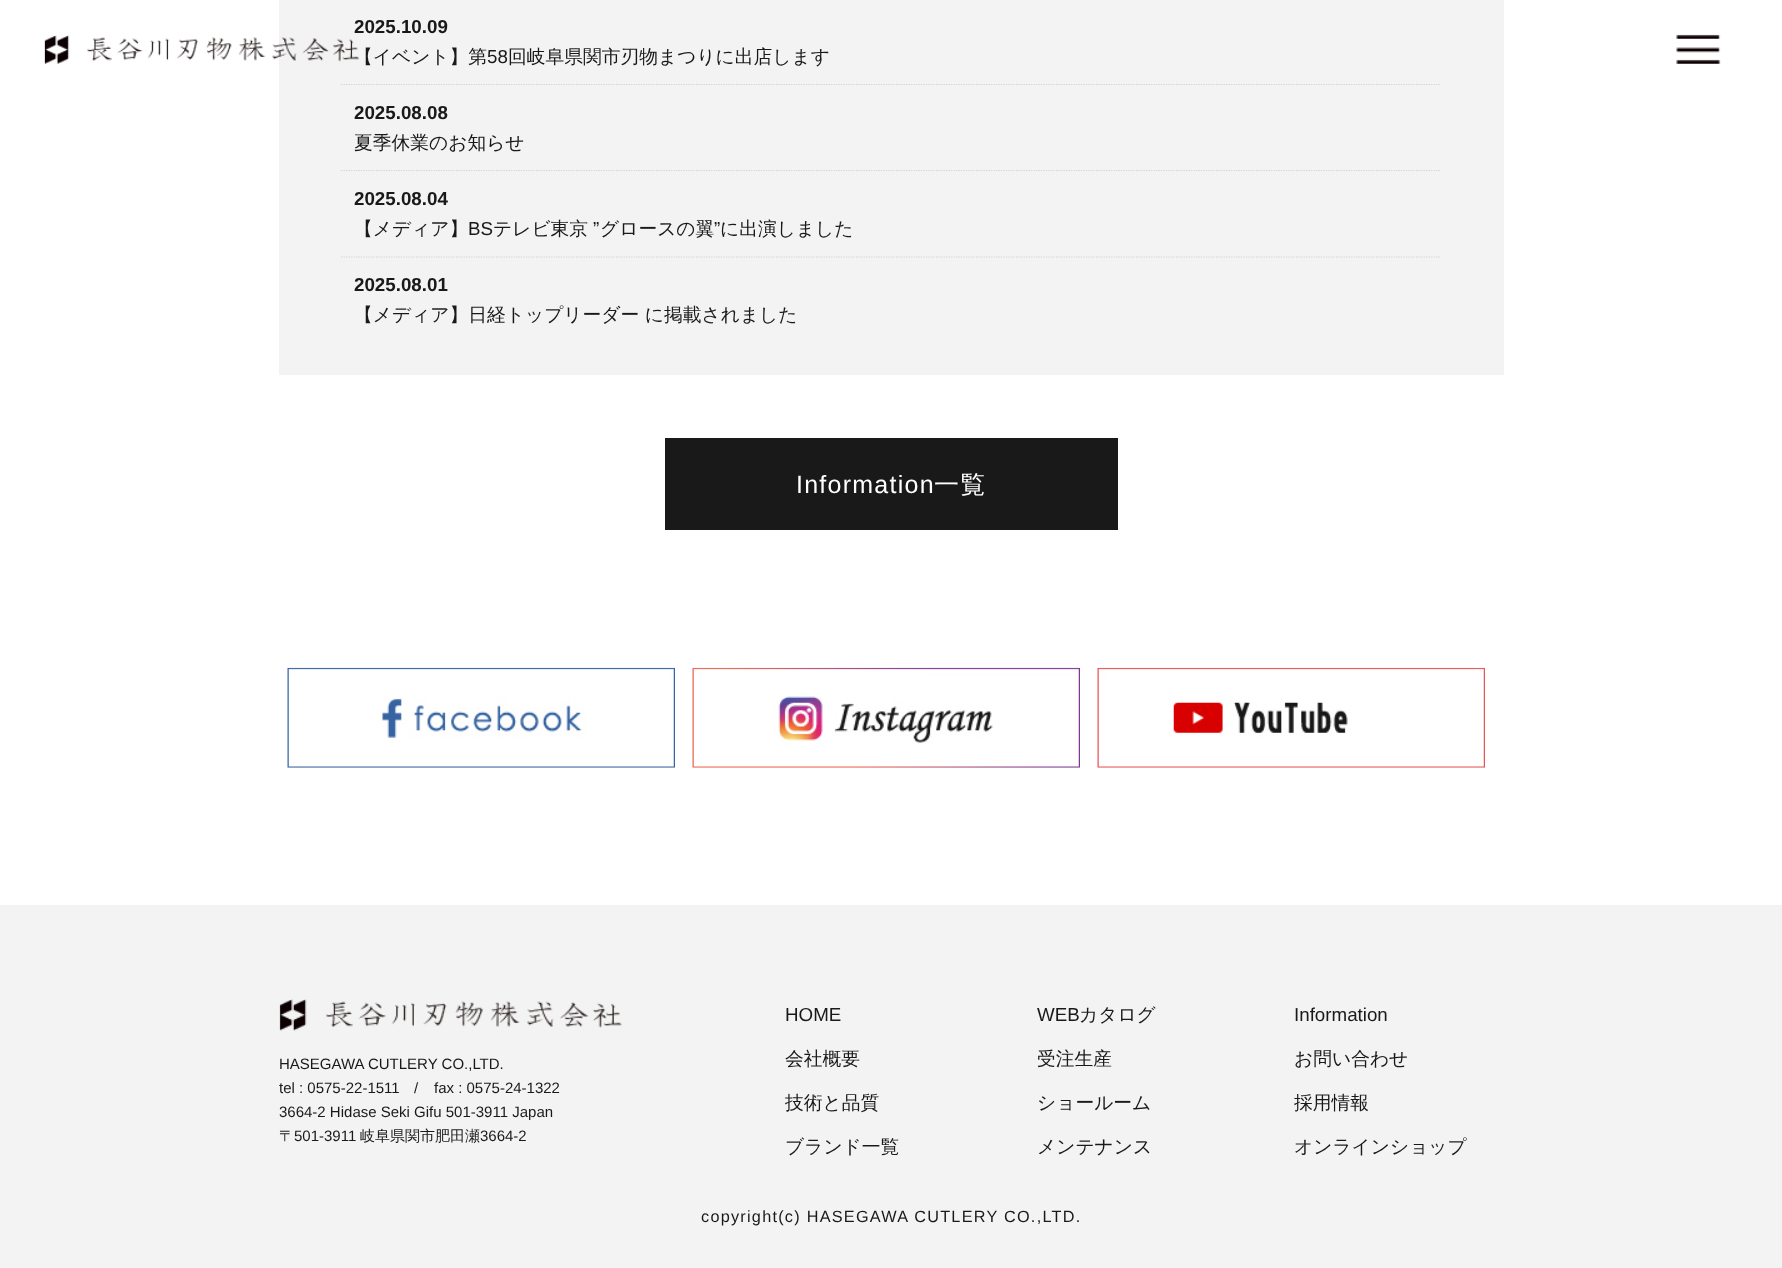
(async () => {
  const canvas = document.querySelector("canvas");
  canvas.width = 1782;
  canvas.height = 1268;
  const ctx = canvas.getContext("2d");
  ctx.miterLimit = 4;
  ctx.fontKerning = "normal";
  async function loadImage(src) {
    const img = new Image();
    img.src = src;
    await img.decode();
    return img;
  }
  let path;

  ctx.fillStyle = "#ffffff";
  ctx.fillRect(0, 0, 1782, 1268);
  ctx.fillStyle = "#f3f3f3";
  ctx.fillRect(279, 0, 1225, 375);
  path = new Path2D("M341 84.5H1441");
  ctx.strokeStyle = "#d1d1d1";
  ctx.lineWidth = 1.2;
  ctx.setLineDash([1.25, 1.25]);
  ctx.stroke(path);
  path = new Path2D("M341 170.5H1441");
  ctx.stroke(path);
  path = new Path2D("M341 257H1441");
  ctx.stroke(path);
  ctx.fillStyle = "#191919";
  ctx.fillRect(665, 438, 453, 92);
  ctx.drawImage(await loadImage("img/1.png"), 287, 667, 388, 101);
  ctx.drawImage(await loadImage("img/2.png"), 692, 667, 388, 101);
  ctx.drawImage(await loadImage("img/3.png"), 1097, 667, 388, 101);
  ctx.drawImage(await loadImage("img/4.png"), 44, 35, 315, 29);
  ctx.drawImage(await loadImage("img/5.png"), 1676, 34, 45, 30);
  ctx.fillStyle = "#f3f3f3";
  ctx.fillRect(0, 905, 1782, 363);
  ctx.drawImage(await loadImage("img/6.png"), 279, 999, 343, 32);
  ctx.font = "bold 18.75px Liberation Sans";
  ctx.fillStyle = "#191919";
  ctx.fillText("2025.10.09", 354, 33);
  ctx.font = "500 18.75px WenQuanYi Zen Hei";
  ctx.fillText("【イベント】第", 354, 63);
  ctx.font = "18.75px Liberation Sans";
  ctx.fillText("58", 487, 63);
  ctx.font = "500 18.75px WenQuanYi Zen Hei";
  ctx.fillText("回岐阜県関市刃物まつりに出店します", 508, 63);
  ctx.font = "bold 18.75px Liberation Sans";
  ctx.fillText("2025.08.08", 354, 119);
  ctx.font = "500 18.75px WenQuanYi Zen Hei";
  ctx.fillText("夏季休業のお知らせ", 354, 149);
  ctx.font = "bold 18.75px Liberation Sans";
  ctx.fillText("2025.08.04", 354, 205);
  ctx.font = "500 18.75px WenQuanYi Zen Hei";
  ctx.fillText("【メディア】", 354, 235);
  ctx.font = "18.75px Liberation Sans";
  ctx.fillText("BS", 468, 235);
  ctx.font = "500 18.75px WenQuanYi Zen Hei";
  ctx.fillText("テレビ東京", 493, 235);
  ctx.font = "18.75px Liberation Sans";
  ctx.fillText("”", 593, 235);
  ctx.font = "500 18.75px WenQuanYi Zen Hei";
  ctx.fillText("グロースの翼", 600, 235);
  ctx.font = "18.75px Liberation Sans";
  ctx.fillText("”", 714, 235);
  ctx.font = "500 18.75px WenQuanYi Zen Hei";
  ctx.fillText("に出演しました", 720, 235);
  ctx.font = "bold 18.75px Liberation Sans";
  ctx.fillText("2025.08.01", 354, 291);
  ctx.font = "500 18.75px WenQuanYi Zen Hei";
  ctx.fillText("【メディア】日経トップリーダー に掲載されました", 354, 321);
  ctx.letterSpacing = "1.25px";
  ctx.font = "25px Liberation Sans";
  ctx.fillStyle = "#ffffff";
  ctx.fillText("Information", 796, 493);
  ctx.font = "500 25px WenQuanYi Zen Hei";
  ctx.fillText("一覧", 934, 493);
  ctx.letterSpacing = "0px";
  ctx.font = "18.75px Liberation Sans";
  ctx.fillStyle = "#191919";
  ctx.fillText("HOME", 785, 1021);
  ctx.font = "500 18.75px WenQuanYi Zen Hei";
  for (const [text, x, y] of [
    ["会社概要", 785, 1065],
    ["技術と品質", 785, 1109],
    ["ブランド一覧", 785, 1153],
  ]) {
    ctx.fillText(text, x, y);
  }
  ctx.font = "18.75px Liberation Sans";
  ctx.fillText("WEB", 1037, 1021);
  ctx.font = "500 18.75px WenQuanYi Zen Hei";
  for (const [text, x, y] of [
    ["カタログ", 1079, 1021],
    ["受注生産", 1037, 1065],
    ["ショールーム", 1037, 1109],
    ["メンテナンス", 1037, 1153],
  ]) {
    ctx.fillText(text, x, y);
  }
  ctx.font = "18.75px Liberation Sans";
  ctx.fillText("Information", 1294, 1021);
  ctx.font = "500 18.75px WenQuanYi Zen Hei";
  for (const [text, x, y] of [
    ["お問い合わせ", 1294, 1065],
    ["採用情報", 1294, 1109],
    ["オンラインショップ", 1294, 1153],
  ]) {
    ctx.fillText(text, x, y);
  }
  ctx.font = "15px Liberation Sans";
  for (const [text, x, y] of [
    ["HASEGAWA CUTLERY CO.,LTD.", 279, 1069],
    ["tel : 0575-22-1511", 279, 1093],
    ["/", 414, 1093],
    ["fax : 0575-24-1322", 434, 1093],
    ["3664-2 Hidase Seki Gifu 501-3911 Japan", 279, 1117],
  ]) {
    ctx.fillText(text, x, y);
  }
  ctx.font = "500 15px WenQuanYi Zen Hei";
  ctx.fillText("〒", 279, 1141);
  ctx.font = "15px Liberation Sans";
  ctx.fillText("501-3911", 294, 1141);
  ctx.font = "500 15px WenQuanYi Zen Hei";
  ctx.fillText("岐阜県関市肥田瀬", 360, 1141);
  ctx.font = "15px Liberation Sans";
  ctx.fillText("3664-2", 480, 1141);
  ctx.letterSpacing = "1.25px";
  ctx.font = "16.25px Liberation Sans";
  ctx.fillText("copyright(c) HASEGAWA CUTLERY CO.,LTD.", 701, 1222);
})();
